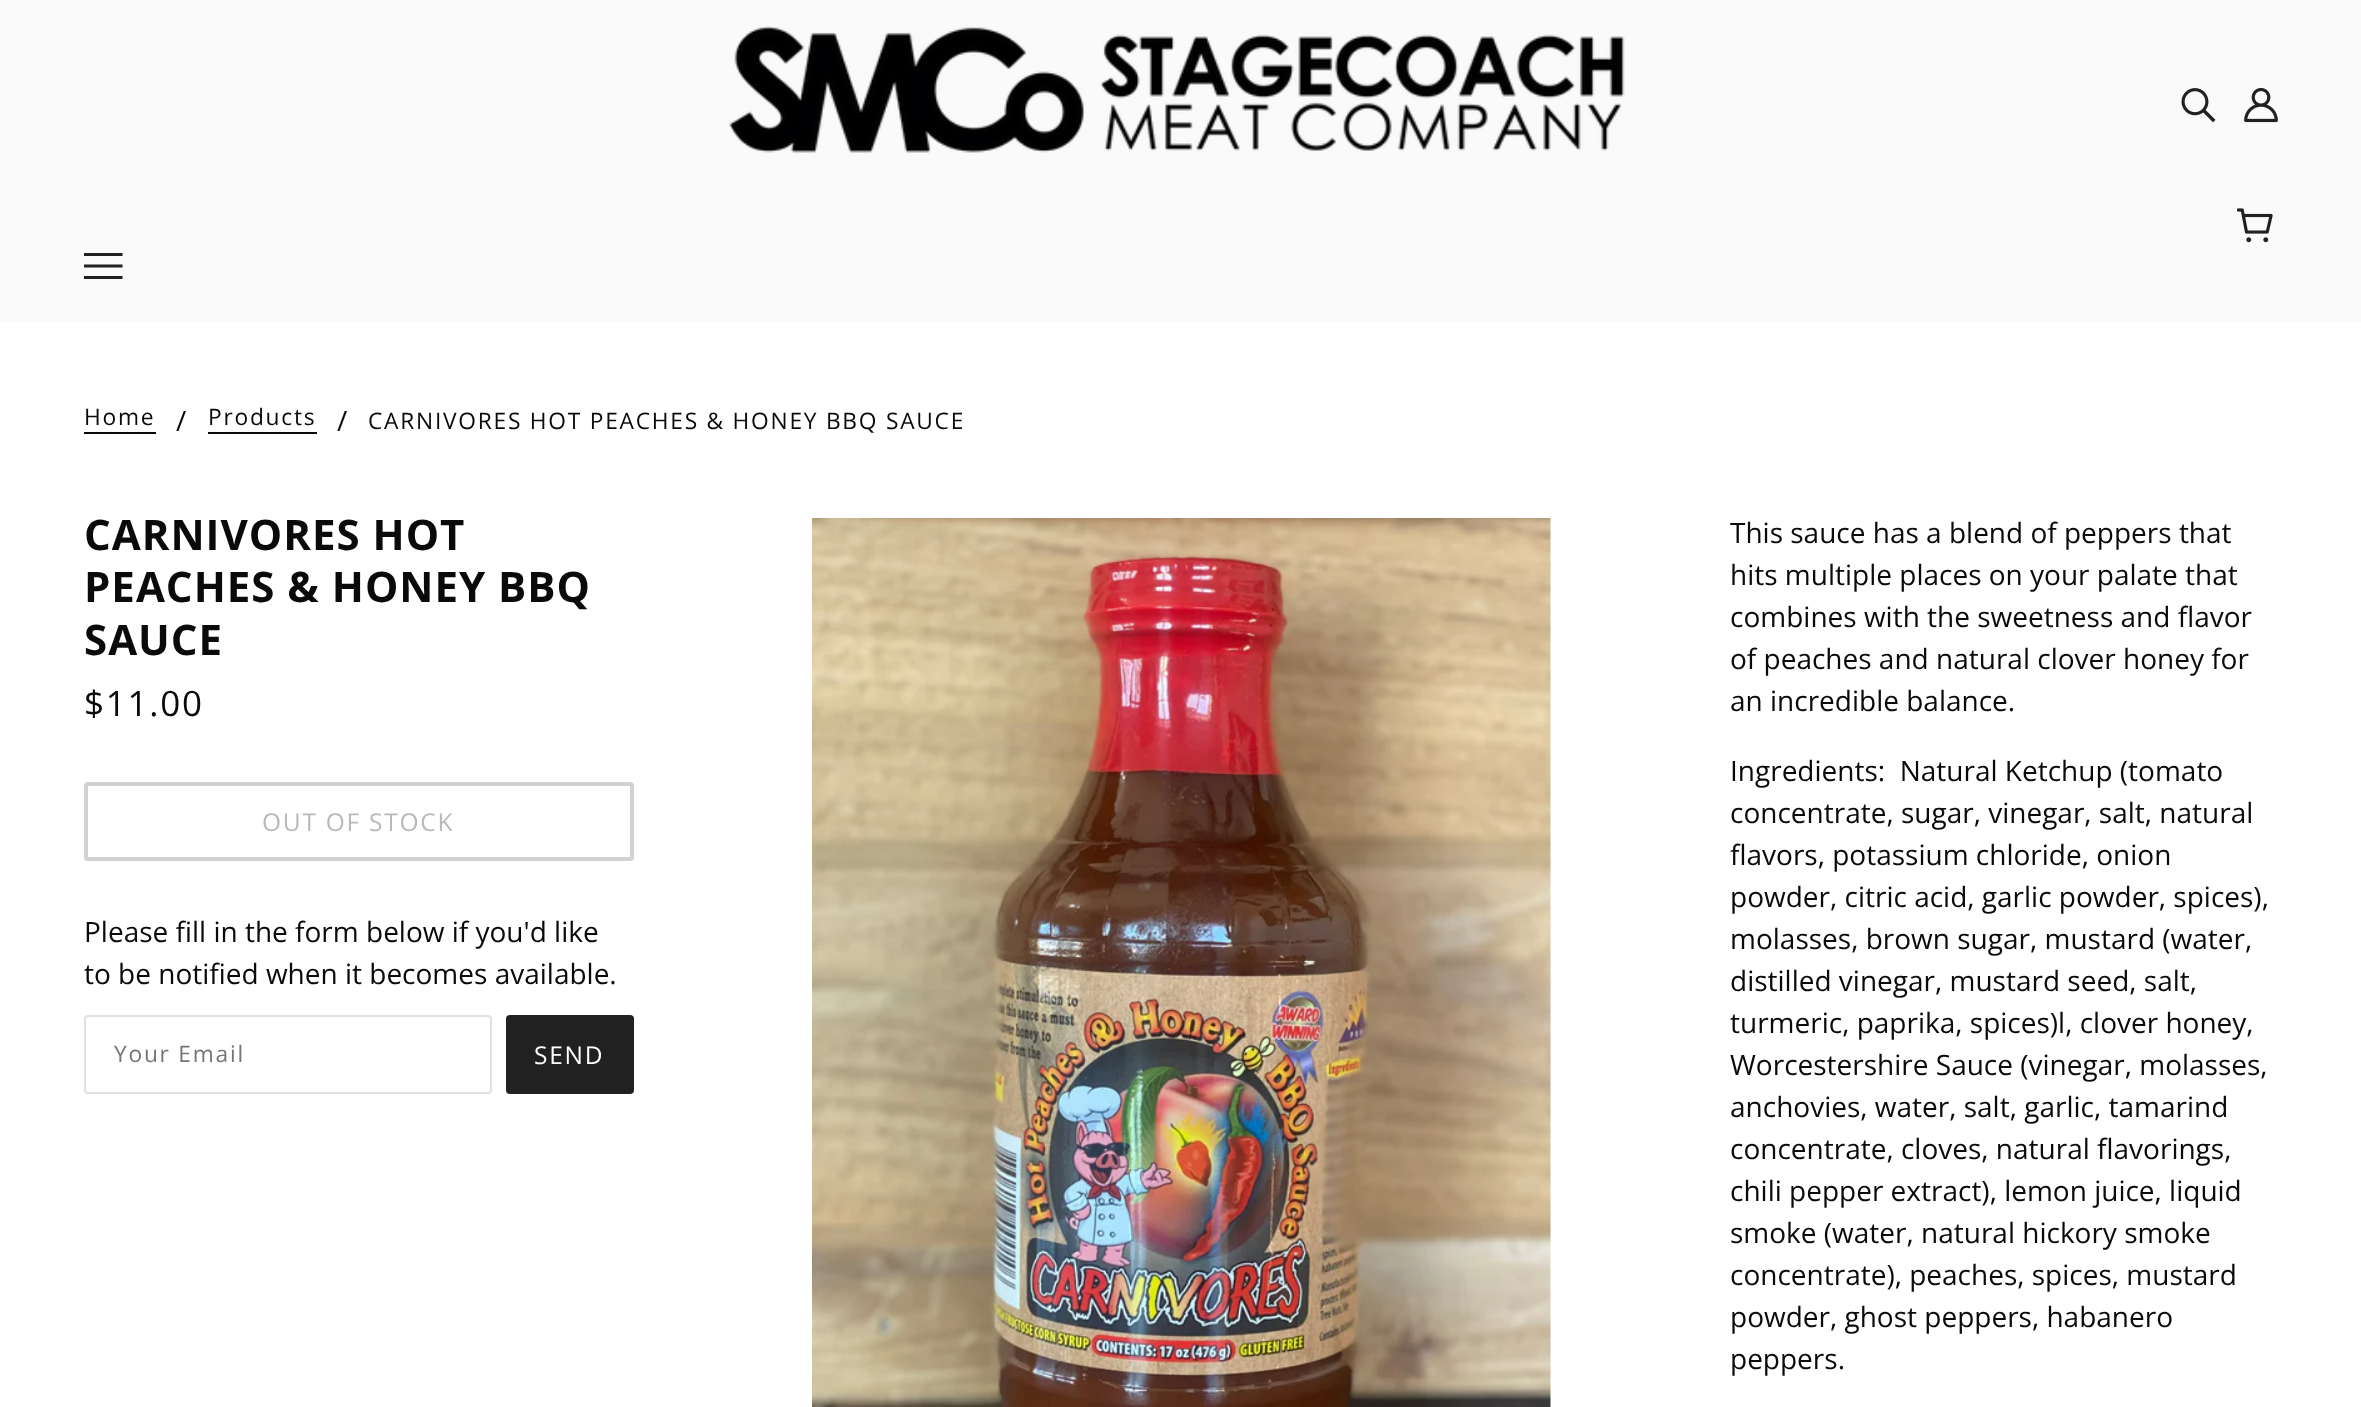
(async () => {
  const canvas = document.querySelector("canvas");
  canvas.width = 2361;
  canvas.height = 1407;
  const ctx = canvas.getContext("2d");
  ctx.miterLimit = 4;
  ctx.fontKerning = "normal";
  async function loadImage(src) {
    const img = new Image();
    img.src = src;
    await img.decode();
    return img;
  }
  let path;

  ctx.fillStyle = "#ffffff";
  ctx.fillRect(0, 0, 2361, 1407);
  ctx.fillStyle = "#fafafa";
  ctx.fillRect(0, 0, 2361, 322);
  ctx.drawImage(await loadImage("img/1.png"), 729, 26, 896, 127);
  ctx.drawImage(await loadImage("img/2.png"), 2181, 88, 35, 35);
  ctx.drawImage(await loadImage("img/3.png"), 2244, 88, 34, 35);
  ctx.drawImage(await loadImage("img/4.png"), 2237, 208, 36, 35);
  ctx.fillStyle = "#212121";
  path = new Path2D("M84 256V253H122.5V256ZM84 267.5V264.5H122.5V267.5ZM84 279V276H122.5V279Z");
  ctx.fill(path);
  ctx.fillStyle = "#0b0a0a";
  ctx.fillRect(84, 432, 72, 2);
  ctx.fillRect(208, 432, 109, 2);
  ctx.drawImage(await loadImage("img/5.png"), 812, 518, 739, 889);
  ctx.beginPath();
  ctx.roundRect(86, 784, 546, 75, 2);
  ctx.strokeStyle = "#d2d2d2";
  ctx.lineWidth = 4;
  ctx.stroke();
  ctx.beginPath();
  ctx.roundRect(85, 1016, 406, 77, 3);
  ctx.strokeStyle = "#e0e0e0";
  ctx.lineWidth = 2;
  ctx.stroke();
  ctx.fillStyle = "#212121";
  ctx.beginPath();
  ctx.roundRect(506, 1015, 128, 79, 4);
  ctx.fill();
  ctx.letterSpacing = "1.75px";
  ctx.font = "22.75px Open Sans";
  ctx.fillStyle = "#0b0a0a";
  ctx.fillText("Home", 84, 425);
  ctx.letterSpacing = "0px";
  ctx.font = "28px Open Sans";
  ctx.fillText("/", 176, 431);
  ctx.letterSpacing = "1.75px";
  ctx.font = "22.75px Open Sans";
  ctx.fillText("Products", 208, 425);
  ctx.letterSpacing = "0px";
  ctx.font = "28px Open Sans";
  ctx.fillText("/", 337, 431);
  ctx.letterSpacing = "1.75px";
  ctx.font = "22.75px Open Sans";
  ctx.fillText("CARNIVORES HOT PEACHES & HONEY BBQ SAUCE", 368, 429);
  ctx.letterSpacing = "1px";
  ctx.font = "bold 42px Open Sans";
  for (const [text, x, y] of [
    ["CARNIVORES HOT", 84, 550],
    ["PEACHES & HONEY BBQ", 84, 602],
    ["SAUCE", 84, 655],
  ]) {
    ctx.fillText(text, x, y);
  }
  ctx.letterSpacing = "0px";
  ctx.font = "28px Open Sans";
  for (const [text, x, y] of [
    ["This sauce has a blend of peppers that", 1730, 543],
    ["hits multiple places on your palate that", 1730, 585],
    ["combines with the sweetness and flavor", 1730, 627],
    ["of peaches and natural clover honey for", 1730, 669],
    ["an incredible balance.", 1730, 711],
    ["Ingredients:  Natural Ketchup (tomato", 1730, 781],
    ["concentrate, sugar, vinegar, salt, natural", 1730, 823],
    ["flavors, potassium chloride, onion", 1730, 865],
    ["powder, citric acid, garlic powder, spices),", 1730, 907],
    ["molasses, brown sugar, mustard (water,", 1730, 949],
    ["distilled vinegar, mustard seed, salt,", 1730, 991],
    ["turmeric, paprika, spices)l, clover honey,", 1730, 1033],
    ["Worcestershire Sauce (vinegar, molasses,", 1730, 1075],
    ["anchovies, water, salt, garlic, tamarind", 1730, 1117],
    ["concentrate, cloves, natural flavorings,", 1730, 1159],
    ["chili pepper extract), lemon juice, liquid", 1730, 1201],
    ["smoke (water, natural hickory smoke", 1730, 1243],
    ["concentrate), peaches, spices, mustard", 1730, 1285],
    ["powder, ghost peppers, habanero", 1730, 1327],
    ["peppers.", 1730, 1369],
  ]) {
    ctx.fillText(text, x, y);
  }
  ctx.letterSpacing = "1.75px";
  ctx.font = "35px Open Sans";
  ctx.fillText("$11.00", 84, 716);
  ctx.font = "24.5px Open Sans";
  ctx.fillStyle = "#b9b9b9";
  ctx.fillText("OUT OF STOCK", 262, 831);
  ctx.letterSpacing = "0px";
  ctx.font = "28px Open Sans";
  ctx.fillStyle = "#0b0a0a";
  ctx.fillText("Please fill in the form below if you'd like", 84, 942);
  ctx.fillText("to be notified when it becomes available.", 84, 984);
  ctx.letterSpacing = "1.75px";
  ctx.font = "22.75px Open Sans";
  ctx.fillStyle = "#757575";
  ctx.fillText("Your Email", 114, 1062);
  ctx.font = "24.5px Open Sans";
  ctx.fillStyle = "#ffffff";
  ctx.fillText("SEND", 534, 1064);
})();
